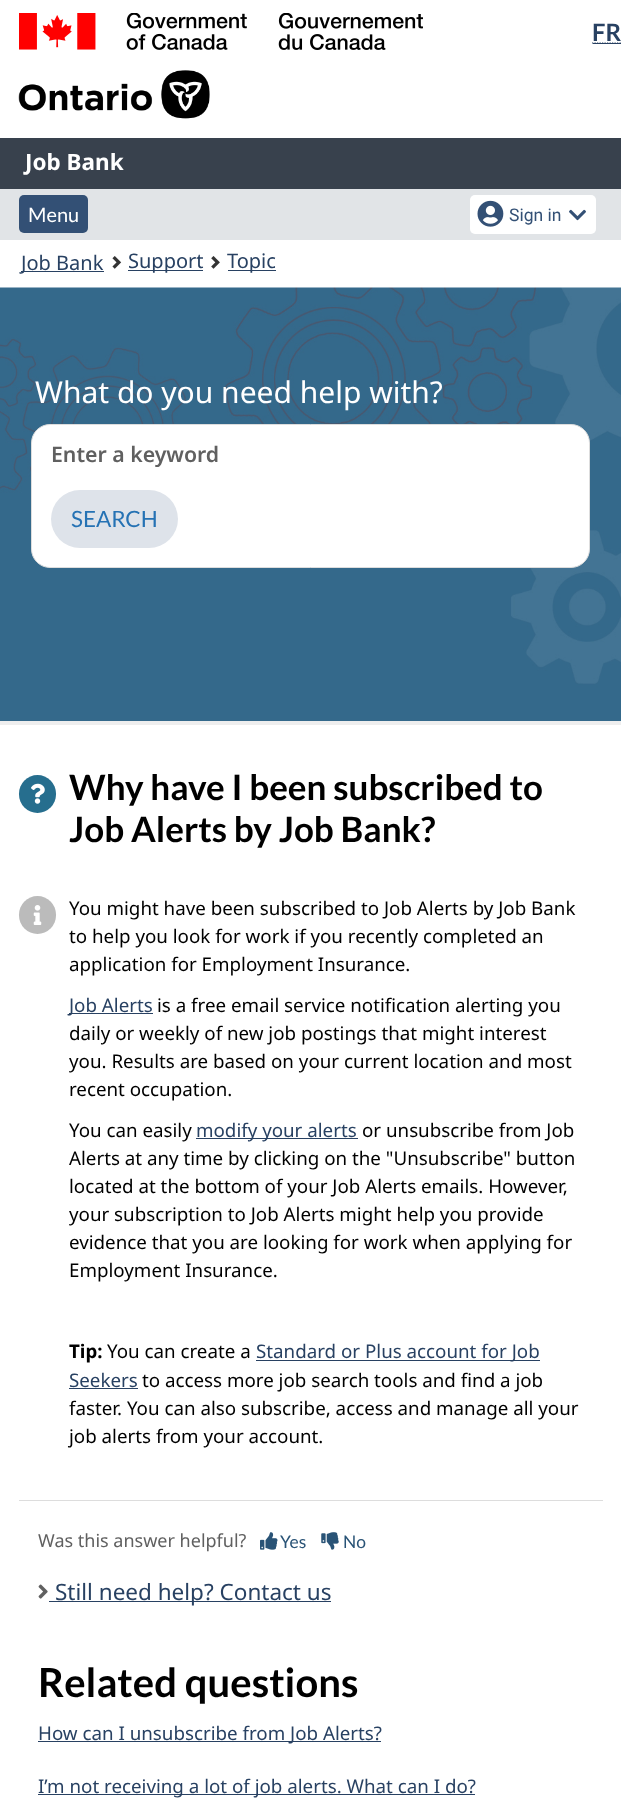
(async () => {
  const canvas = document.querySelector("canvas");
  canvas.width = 621;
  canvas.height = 1818;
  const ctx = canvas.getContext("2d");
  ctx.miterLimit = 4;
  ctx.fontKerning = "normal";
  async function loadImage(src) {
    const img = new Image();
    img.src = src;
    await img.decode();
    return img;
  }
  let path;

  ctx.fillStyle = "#ffffff";
  ctx.fillRect(0, 0, 621, 1818);
  ctx.drawImage(await loadImage("img/1.png"), 19, 13, 404, 37);
  path = new Path2D("M592 43H621");
  ctx.strokeStyle = "#284162";
  ctx.lineWidth = 1.2;
  ctx.setLineDash([1.25, 1.25]);
  ctx.stroke(path);
  ctx.fillStyle = "#284162";
  ctx.fillRect(593, 43, 28, 1);
  ctx.drawImage(await loadImage("img/2.png"), 18, 70, 192, 49);
  ctx.fillStyle = "#38414d";
  ctx.fillRect(0, 138, 621, 51);
  ctx.fillStyle = "#e1e4e7";
  ctx.fillRect(0, 189, 621, 51);
  ctx.fillStyle = "#335075";
  ctx.beginPath();
  ctx.roundRect(19, 195, 69, 38, 5);
  ctx.fill();
  ctx.fillStyle = "#ffffff";
  ctx.beginPath();
  ctx.roundRect(470, 195, 126, 39, 5);
  ctx.fill();
  ctx.drawImage(await loadImage("img/3.png"), 477, 200, 27, 27);
  ctx.drawImage(await loadImage("img/4.png"), 569, 209, 17, 12);
  ctx.fillStyle = "#284162";
  ctx.fillRect(21, 271, 83, 1);
  ctx.drawImage(await loadImage("img/5.png"), 112, 256, 10, 13);
  ctx.fillRect(128, 270, 75, 1);
  ctx.drawImage(await loadImage("img/6.png"), 211, 256, 9, 13);
  ctx.fillRect(228, 270, 48, 1);
  ctx.drawImage(await loadImage("img/7.png"), 0, 287, 621, 434);
  ctx.fillStyle = "#eeeeee";
  ctx.fillRect(0, 721, 621, 4);
  ctx.fillStyle = "#ffffff";
  ctx.beginPath();
  ctx.roundRect(31.5, 424.5, 558, 143, 18.5);
  ctx.fill();
  ctx.strokeStyle = "#dddddd";
  ctx.lineWidth = 1;
  ctx.setLineDash([]);
  ctx.stroke();
  ctx.fillStyle = "#dee3ea";
  ctx.beginPath();
  ctx.roundRect(51, 490, 127, 58, 29);
  ctx.fill();
  ctx.fillStyle = "#266e8e";
  ctx.beginPath();
  ctx.roundRect(19, 775, 37, 38, 18.5);
  ctx.fill();
  ctx.drawImage(await loadImage("img/8.png"), 31, 783, 14, 21);
  ctx.fillStyle = "#bbbbbb";
  ctx.beginPath();
  ctx.roundRect(19, 896, 37, 38, 18.5);
  ctx.fill();
  ctx.drawImage(await loadImage("img/9.png"), 33, 905, 9, 20);
  for (const [x, y, w, h, color] of [
    [69, 1013, 84, 1, "#284162"],
    [196, 1138, 162, 1, "#284162"],
    [256, 1360, 284, 1, "#284162"],
    [69, 1388, 69, 1, "#284162"],
    [19, 1500, 584, 1, "#dddddd"],
  ]) {
    ctx.fillStyle = color;
    ctx.fillRect(x, y, w, h);
  }
  ctx.drawImage(await loadImage("img/10.png"), 260, 1532, 18, 18);
  ctx.drawImage(await loadImage("img/11.png"), 321, 1532, 18, 18);
  ctx.drawImage(await loadImage("img/12.png"), 38, 1584, 10, 15);
  for (const [x, y, w, h, color] of [
    [49, 1601, 282, 1, "#284162"],
    [38, 1741, 343, 1, "#284162"],
    [38, 1794, 437, 1, "#284162"],
  ]) {
    ctx.fillStyle = color;
    ctx.fillRect(x, y, w, h);
  }
  ctx.font = "bold 24px Lato";
  ctx.fillText("FR", 592, 41);
  ctx.font = "bold 22.5px Noto Sans";
  ctx.fillStyle = "#ffffff";
  ctx.fillText("Job Bank", 25, 170);
  ctx.font = "20px Lato";
  ctx.fillText("Menu", 28, 222);
  ctx.font = "17.5px Roboto";
  ctx.fillStyle = "#335075";
  ctx.fillText("Sign in", 509, 221);
  ctx.font = "20px Noto Sans";
  ctx.fillStyle = "#284162";
  for (const [text, x, y] of [
    ["Job Bank", 21, 270],
    ["Support", 128, 268],
    ["Topic", 227, 268],
  ]) {
    ctx.fillText(text, x, y);
  }
  ctx.font = "30px Noto Sans";
  ctx.fillStyle = "#ffffff";
  ctx.fillText("What do you need help with?", 35, 403);
  ctx.font = "600 21.25px Noto Sans";
  ctx.fillStyle = "#606060";
  ctx.fillText("Enter a keyword", 51, 462);
  ctx.font = "22.5px Lato";
  ctx.fillStyle = "#2572b4";
  ctx.fillText("SEARCH", 71, 527);
  ctx.font = "bold 35px Lato";
  ctx.fillStyle = "#000000";
  ctx.fillText("Why have I been subscribed to", 69, 800);
  ctx.fillText("Job Alerts by Job Bank?", 69, 842);
  ctx.font = "18.75px Noto Sans";
  for (const [text, x, y] of [
    ["You might have been subscribed to Job Alerts by Job Bank", 69, 915],
    ["to help you look for work if you recently completed an", 69, 943],
    ["application for Employment Insurance.", 69, 971],
  ]) {
    ctx.fillText(text, x, y);
  }
  ctx.fillStyle = "#284162";
  ctx.fillText("Job Alerts", 69, 1012);
  ctx.fillStyle = "#000000";
  for (const [text, x, y] of [
    ["is a free email service notification alerting you", 157, 1012],
    ["daily or weekly of new job postings that might interest", 69, 1040],
    ["you. Results are based on your current location and most", 69, 1068],
    ["recent occupation.", 69, 1096],
    ["You can easily", 69, 1137],
  ]) {
    ctx.fillText(text, x, y);
  }
  ctx.fillStyle = "#284162";
  ctx.fillText("modify your alerts", 196, 1137);
  ctx.fillStyle = "#000000";
  for (const [text, x, y] of [
    ["or unsubscribe from Job", 362, 1137],
    ["Alerts at any time by clicking on the \"Unsubscribe\" button", 69, 1165],
    ["located at the bottom of your Job Alerts emails. However,", 69, 1193],
    ["your subscription to Job Alerts might help you provide", 69, 1221],
    ["evidence that you are looking for work when applying for", 69, 1249],
    ["Employment Insurance.", 69, 1277],
  ]) {
    ctx.fillText(text, x, y);
  }
  ctx.font = "bold 18.75px Noto Sans";
  ctx.fillText("Tip:", 69, 1358);
  ctx.font = "18.75px Noto Sans";
  ctx.fillText("You can create a", 107, 1358);
  ctx.fillStyle = "#284162";
  ctx.fillText("Standard or Plus account for Job", 256, 1358);
  ctx.fillText("Seekers", 69, 1387);
  ctx.fillStyle = "#000000";
  for (const [text, x, y] of [
    ["to access more job search tools and find a job", 142, 1387],
    ["faster. You can also subscribe, access and manage all your", 69, 1415],
    ["job alerts from your account.", 69, 1443],
  ]) {
    ctx.fillText(text, x, y);
  }
  ctx.font = "18px Noto Sans";
  ctx.fillStyle = "#606060";
  ctx.fillText("Was this answer helpful?", 38, 1547);
  ctx.font = "17.5px Lato";
  ctx.fillStyle = "#295376";
  ctx.fillText("Yes", 280, 1548);
  ctx.fillText("No", 343, 1548);
  ctx.font = "22.5px Noto Sans";
  ctx.fillStyle = "#284162";
  ctx.fillText("Still need help? Contact us", 55, 1600);
  ctx.font = "bold 40px Lato";
  ctx.fillStyle = "#000000";
  ctx.fillText("Related questions", 38, 1697);
  ctx.font = "18.75px Noto Sans";
  ctx.fillStyle = "#284162";
  ctx.fillText("How can I unsubscribe from Job Alerts?", 38, 1740);
  ctx.fillText("I’m not receiving a lot of job alerts. What can I do?", 38, 1793);
})();
